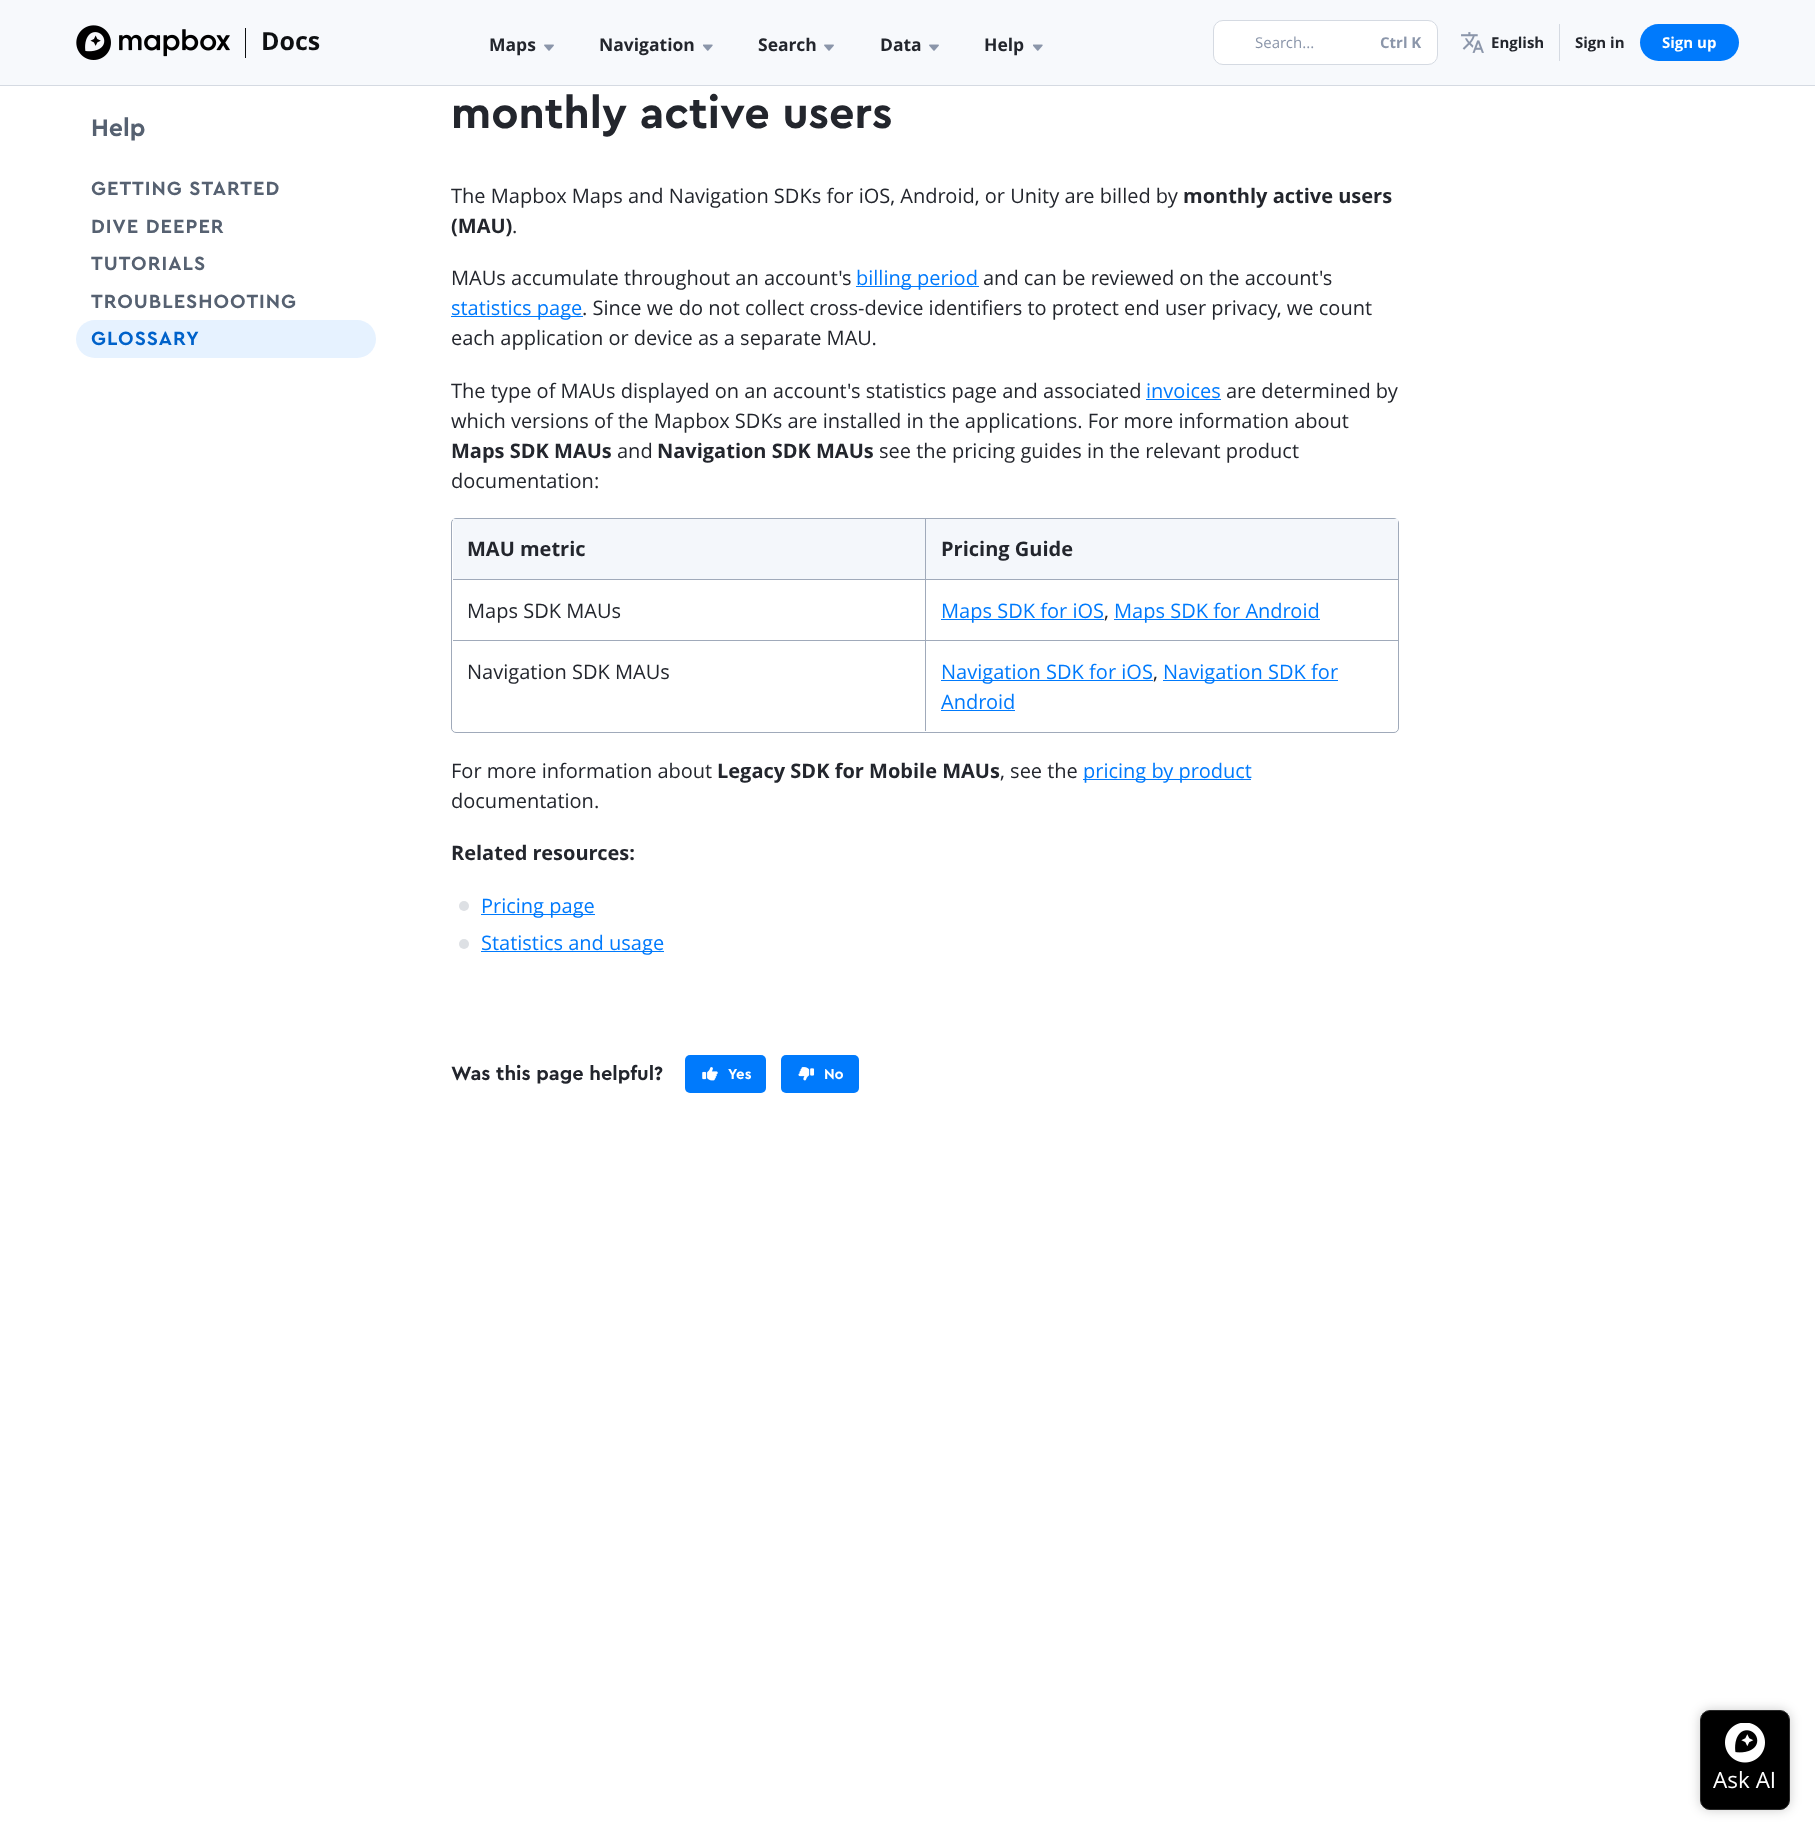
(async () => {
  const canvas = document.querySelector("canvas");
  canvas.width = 1815;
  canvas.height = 1834;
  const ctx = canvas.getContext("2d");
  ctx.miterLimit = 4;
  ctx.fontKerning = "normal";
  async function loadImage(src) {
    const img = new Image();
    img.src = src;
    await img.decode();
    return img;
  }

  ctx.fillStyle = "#ffffff";
  ctx.fillRect(0, 0, 1815, 1834);
  ctx.fillStyle = "#f7f9fc";
  ctx.fillRect(0, 0, 1815, 85);
  ctx.fillStyle = "#d5dae2";
  ctx.fillRect(0, 85, 1815, 1);
  ctx.drawImage(await loadImage("img/1.png"), 76, 25, 154, 35);
  ctx.fillStyle = "#0e1012";
  ctx.fillRect(245, 28, 1, 30);
  ctx.drawImage(await loadImage("img/2.png"), 544, 44, 10, 7);
  ctx.drawImage(await loadImage("img/3.png"), 703, 44, 10, 7);
  ctx.drawImage(await loadImage("img/2.png"), 824, 44, 10, 7);
  ctx.drawImage(await loadImage("img/2.png"), 929, 44, 10, 7);
  ctx.drawImage(await loadImage("img/3.png"), 1033, 44, 10, 7);
  ctx.fillStyle = "#ffffff";
  ctx.beginPath();
  ctx.roundRect(1213.5, 20.5, 224, 44, 9.5);
  ctx.fill();
  ctx.strokeStyle = "#d5dae2";
  ctx.stroke();
  ctx.drawImage(await loadImage("img/4.png"), 1461, 32, 23, 21);
  ctx.fillStyle = "#d5dae2";
  ctx.fillRect(1559, 24, 1, 37);
  ctx.fillStyle = "#007afc";
  ctx.beginPath();
  ctx.roundRect(1640, 24, 99, 37, 18.5);
  ctx.fill();
  ctx.fillStyle = "#e6f2ff";
  ctx.beginPath();
  ctx.roundRect(76, 320, 300, 38, 19);
  ctx.fill();
  for (const [x, y, w, h, color] of [
    [856, 286, 123, 1, "#007afc"],
    [451, 316, 132, 1, "#007afc"],
    [1146, 399, 75, 1, "#007afc"],
  ]) {
    ctx.fillStyle = color;
    ctx.fillRect(x, y, w, h);
  }
  ctx.beginPath();
  ctx.roundRect(451.5, 518.5, 947, 214, 4.5);
  ctx.strokeStyle = "#a0aaba";
  ctx.stroke();
  for (const [x, y, w, h, color] of [
    [453, 519, 472, 60, "#f4f7fb"],
    [453, 579, 945, 1, "#a0aaba"],
    [926, 519, 472, 60, "#f4f7fb"],
    [925, 519, 1, 61, "#a0aaba"],
    [453, 640, 945, 1, "#a0aaba"],
    [925, 580, 1, 151, "#a0aaba"],
    [941, 619, 163, 1, "#007afc"],
    [1114, 619, 206, 1, "#007afc"],
    [941, 680, 212, 1, "#007afc"],
    [1163, 680, 175, 1, "#007afc"],
    [941, 710, 74, 1, "#007afc"],
    [1083, 779, 168, 1, "#007afc"],
  ]) {
    ctx.fillStyle = color;
    ctx.fillRect(x, y, w, h);
  }
  ctx.fillStyle = "#dde0e4";
  ctx.beginPath();
  ctx.arc(464, 906, 5, 0, Math.PI * 2);
  ctx.fill();
  ctx.fillStyle = "#007afc";
  ctx.fillRect(481, 914, 114, 1);
  ctx.fillStyle = "#dde0e4";
  ctx.beginPath();
  ctx.arc(464, 944, 5, 0, Math.PI * 2);
  ctx.fill();
  ctx.fillStyle = "#007afc";
  ctx.fillRect(481, 951, 183, 1);
  ctx.beginPath();
  ctx.roundRect(685, 1055, 81, 38, 5);
  ctx.fill();
  ctx.drawImage(await loadImage("img/5.png"), 702, 1067, 16, 14);
  ctx.beginPath();
  ctx.roundRect(781, 1055, 78, 38, 5);
  ctx.fill();
  ctx.drawImage(await loadImage("img/6.png"), 798, 1067, 17, 14);
  ctx.fillStyle = "rgba(0, 0, 0, 0.2)";
  ctx.filter = "blur(6px)";
  ctx.beginPath();
  ctx.roundRect(1700, 1710, 90, 100, 10);
  ctx.fill();
  ctx.filter = "none";
  ctx.fillStyle = "#000000";
  ctx.beginPath();
  ctx.roundRect(1700.5, 1710.5, 89, 99, 9.5);
  ctx.fill();
  ctx.strokeStyle = "#282828";
  ctx.stroke();
  ctx.drawImage(await loadImage("img/7.png"), 1725, 1723, 40, 40);
  ctx.font = "bold 25px Open Sans";
  ctx.fillStyle = "#0e1012";
  ctx.fillText("Docs", 261, 50);
  ctx.font = "bold 17.5px Open Sans";
  ctx.fillStyle = "#23262d";
  for (const [text, x, y] of [
    ["Maps", 489, 51],
    ["Navigation", 599, 51],
    ["Search", 758, 51],
    ["Data", 880, 51],
    ["Help", 984, 51],
  ]) {
    ctx.fillText(text, x, y);
  }
  ctx.font = "15px Open Sans";
  ctx.fillStyle = "#8b96aa";
  ctx.fillText("Search...", 1255, 48);
  ctx.font = "bold 15px Open Sans";
  ctx.fillText("Ctrl K", 1380, 48);
  ctx.fillStyle = "#23262d";
  ctx.fillText("English", 1491, 48);
  ctx.fillText("Sign in", 1575, 48);
  ctx.fillStyle = "#ffffff";
  ctx.fillText("Sign up", 1662, 48);
  ctx.font = "bold 25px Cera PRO";
  ctx.fillStyle = "#566171";
  ctx.fillText("Help", 91, 136);
  ctx.letterSpacing = "1px";
  ctx.font = "bold 20px Cera PRO";
  for (const [text, x, y] of [
    ["GETTING STARTED", 91, 195],
    ["DIVE DEEPER", 91, 233],
    ["TUTORIALS", 91, 270],
    ["TROUBLESHOOTING", 91, 308],
  ]) {
    ctx.fillText(text, x, y);
  }
  ctx.fillStyle = "#0062ca";
  ctx.fillText("GLOSSARY", 91, 345);
  ctx.letterSpacing = "0px";
  ctx.font = "bold 45px Cera PRO";
  ctx.fillStyle = "#23262d";
  ctx.fillText("monthly active users", 451, 128);
  ctx.font = "20px Open Sans";
  ctx.fillText("The Mapbox Maps and Navigation SDKs for iOS, Android, or Unity are billed by", 451, 203);
  ctx.font = "bold 20px Open Sans";
  ctx.fillText("monthly active users", 1183, 203);
  ctx.fillText("(MAU)", 451, 233);
  ctx.font = "20px Open Sans";
  ctx.fillText(".", 512, 233);
  ctx.fillText("MAUs accumulate throughout an account's", 451, 285);
  ctx.fillStyle = "#007afc";
  ctx.fillText("billing period", 856, 285);
  ctx.fillStyle = "#23262d";
  ctx.fillText("and can be reviewed on the account's", 983, 285);
  ctx.fillStyle = "#007afc";
  ctx.fillText("statistics page", 451, 315);
  ctx.fillStyle = "#23262d";
  for (const [text, x, y] of [
    [". Since we do not collect cross-device identifiers to protect end user privacy, we count", 582, 315],
    ["each application or device as a separate MAU.", 451, 345],
    ["The type of MAUs displayed on an account's statistics page and associated", 451, 398],
  ]) {
    ctx.fillText(text, x, y);
  }
  ctx.fillStyle = "#007afc";
  ctx.fillText("invoices", 1146, 398);
  ctx.fillStyle = "#23262d";
  ctx.fillText("are determined by", 1226, 398);
  ctx.fillText("which versions of the Mapbox SDKs are installed in the applications. For more information about", 451, 428);
  ctx.font = "bold 20px Open Sans";
  ctx.fillText("Maps SDK MAUs", 451, 458);
  ctx.font = "20px Open Sans";
  ctx.fillText("and", 617, 458);
  ctx.font = "bold 20px Open Sans";
  ctx.fillText("Navigation SDK MAUs", 657, 458);
  ctx.font = "20px Open Sans";
  ctx.fillText("see the pricing guides in the relevant product", 879, 458);
  ctx.fillText("documentation:", 451, 488);
  ctx.font = "bold 20px Open Sans";
  ctx.fillText("MAU metric", 467, 556);
  ctx.fillText("Pricing Guide", 941, 556);
  ctx.font = "20px Open Sans";
  ctx.fillText("Maps SDK MAUs", 467, 618);
  ctx.fillStyle = "#007afc";
  ctx.fillText("Maps SDK for iOS", 941, 618);
  ctx.fillStyle = "#23262d";
  ctx.fillText(",", 1104, 618);
  ctx.fillStyle = "#007afc";
  ctx.fillText("Maps SDK for Android", 1114, 618);
  ctx.fillStyle = "#23262d";
  ctx.fillText("Navigation SDK MAUs", 467, 679);
  ctx.fillStyle = "#007afc";
  ctx.fillText("Navigation SDK for iOS", 941, 679);
  ctx.fillStyle = "#23262d";
  ctx.fillText(",", 1153, 679);
  ctx.fillStyle = "#007afc";
  ctx.fillText("Navigation SDK for", 1163, 679);
  ctx.fillText("Android", 941, 709);
  ctx.fillStyle = "#23262d";
  ctx.fillText("For more information about", 451, 778);
  ctx.font = "bold 20px Open Sans";
  ctx.fillText("Legacy SDK for Mobile MAUs", 717, 778);
  ctx.font = "20px Open Sans";
  ctx.fillText(", see the", 1000, 778);
  ctx.fillStyle = "#007afc";
  ctx.fillText("pricing by product", 1083, 778);
  ctx.fillStyle = "#23262d";
  ctx.fillText("documentation.", 451, 808);
  ctx.font = "bold 20px Open Sans";
  ctx.fillText("Related resources:", 451, 860);
  ctx.font = "20px Open Sans";
  ctx.fillStyle = "#007afc";
  ctx.fillText("Pricing page", 481, 913);
  ctx.fillText("Statistics and usage", 481, 950);
  ctx.font = "bold 20px Cera PRO";
  ctx.fillStyle = "#23262d";
  ctx.fillText("Was this page helpful?", 451, 1080);
  ctx.font = "bold 15px Cera PRO";
  ctx.fillStyle = "#ffffff";
  ctx.fillText("Yes", 728, 1079);
  ctx.fillText("No", 824, 1079);
  ctx.font = "22.5px Open Sans";
  ctx.fillText("Ask AI", 1713, 1788);
})();
